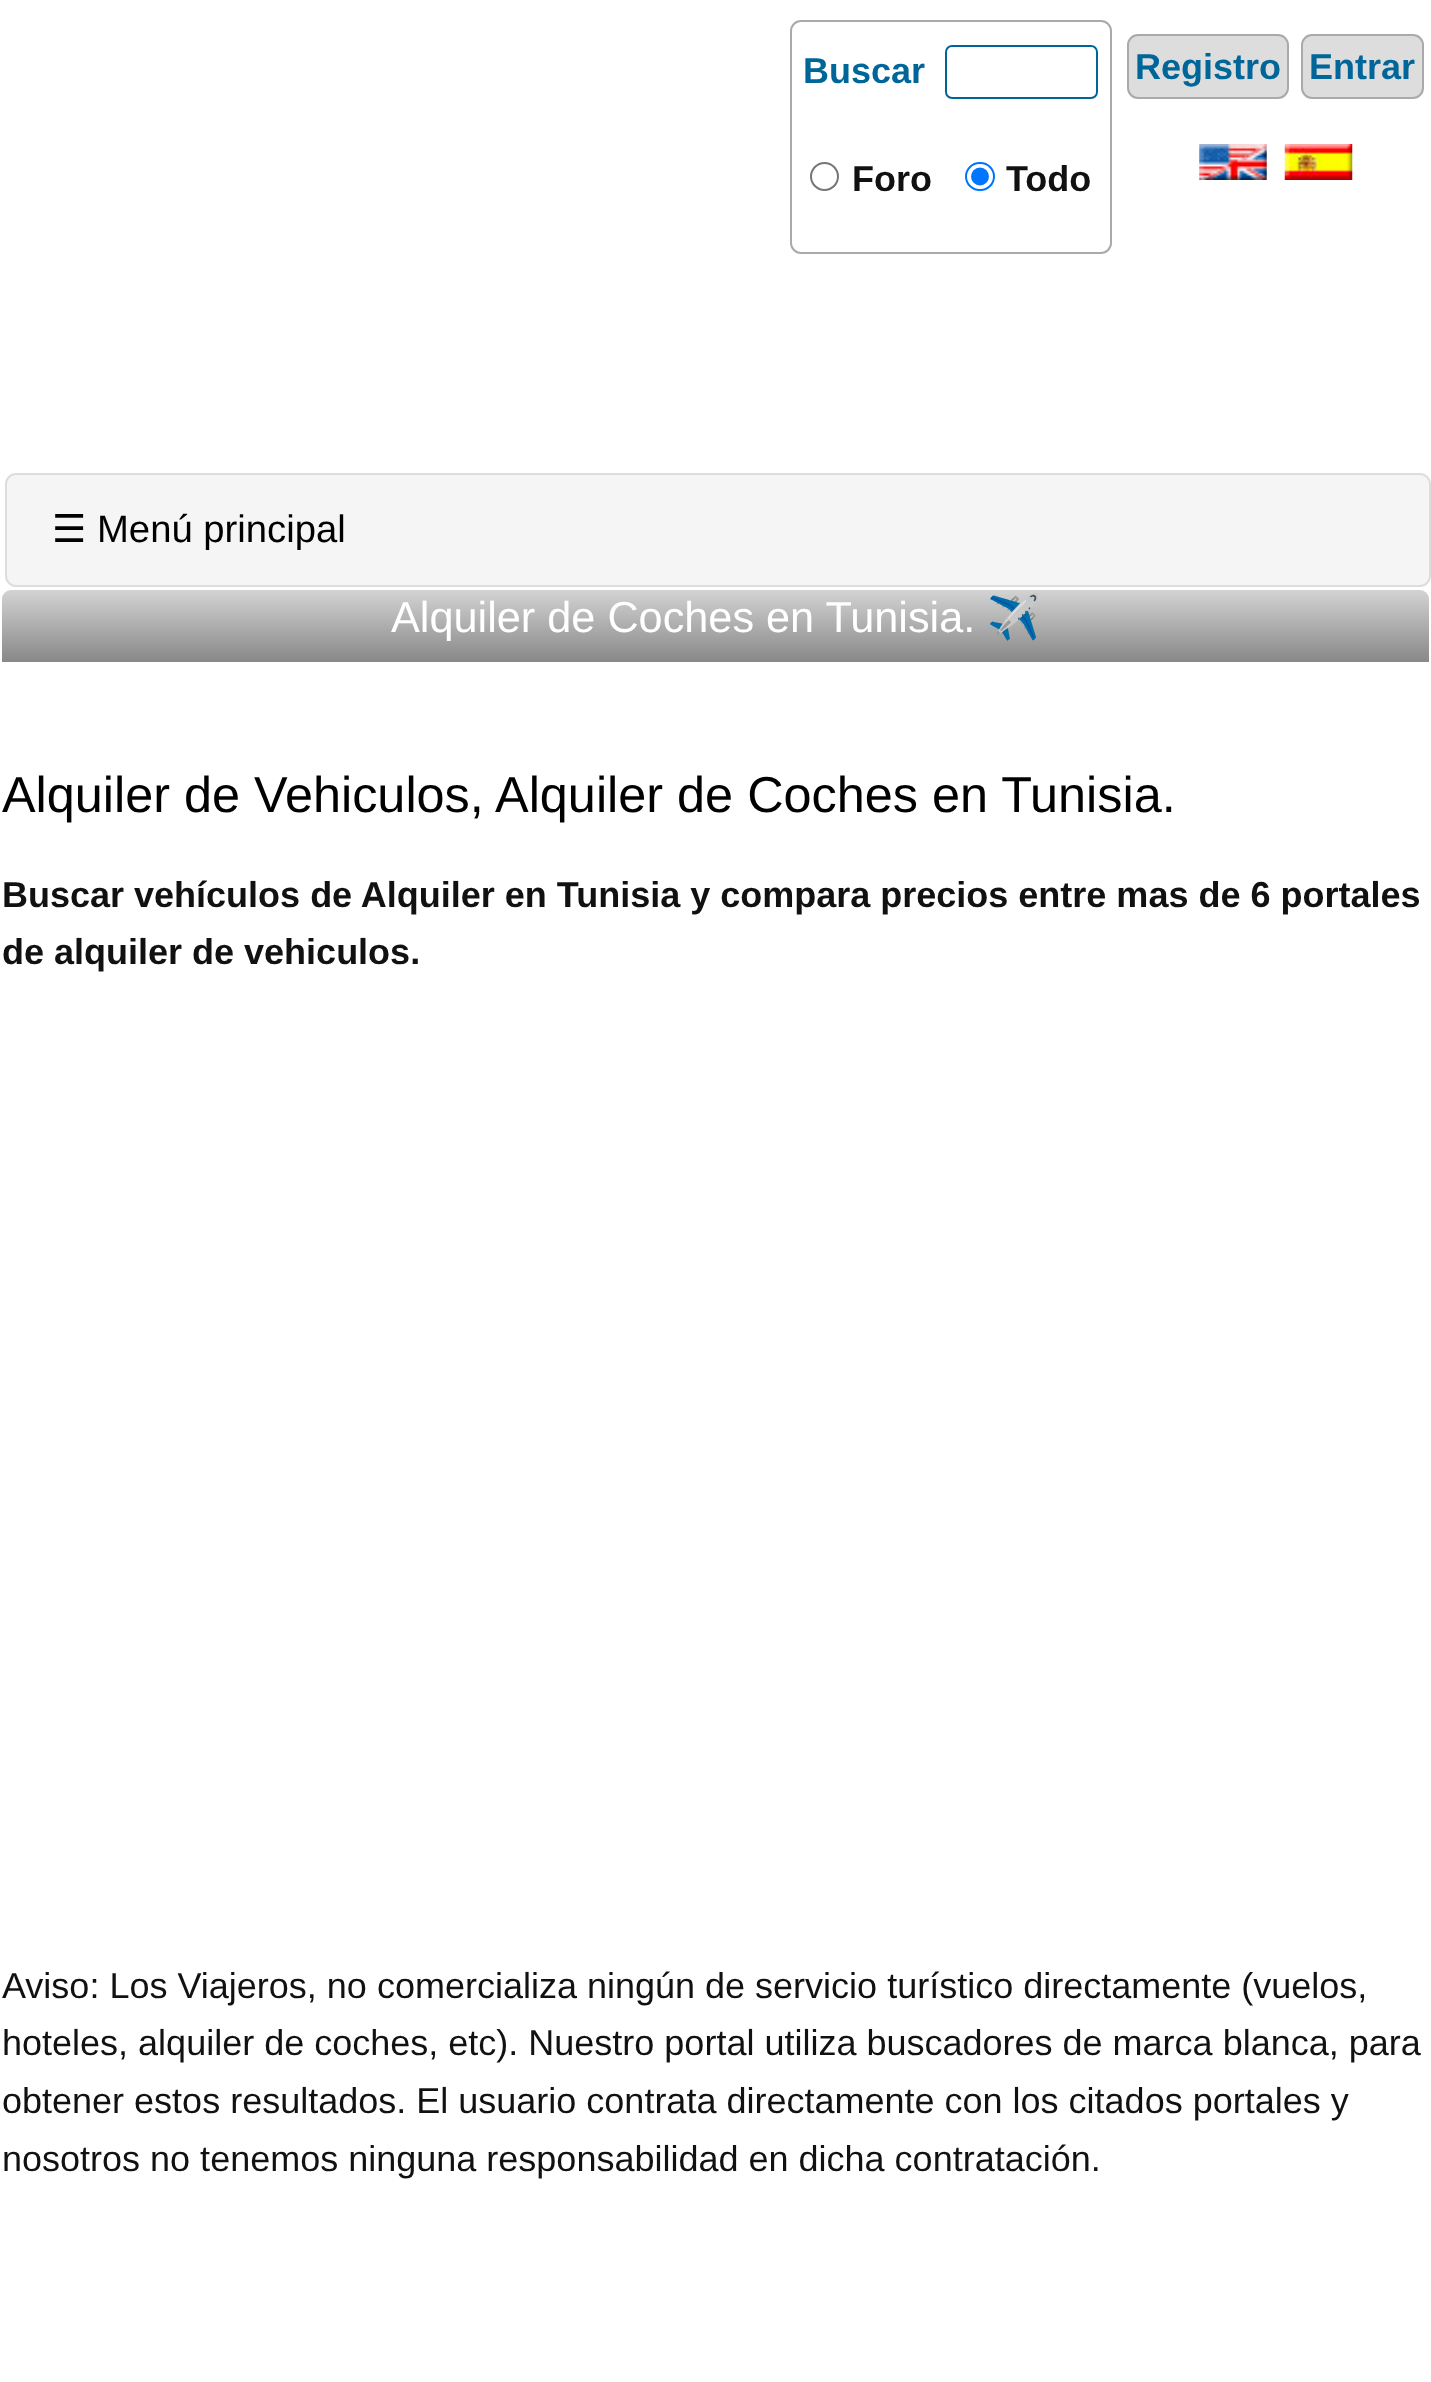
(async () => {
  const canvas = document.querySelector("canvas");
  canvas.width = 1431;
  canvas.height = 2382;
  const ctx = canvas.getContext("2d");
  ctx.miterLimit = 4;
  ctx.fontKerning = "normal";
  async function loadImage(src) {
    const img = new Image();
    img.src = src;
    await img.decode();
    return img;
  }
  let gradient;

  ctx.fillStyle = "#ffffff";
  ctx.fillRect(0, 0, 1431, 2382);
  ctx.beginPath();
  ctx.roundRect(791, 21, 320, 232, 10);
  ctx.strokeStyle = "#aaaaaa";
  ctx.lineWidth = 2;
  ctx.stroke();
  ctx.beginPath();
  ctx.roundRect(946, 46, 151, 52, 6);
  ctx.strokeStyle = "#006699";
  ctx.stroke();
  ctx.beginPath();
  ctx.arc(824.5, 176.5, 13.5, 0, Math.PI * 2);
  ctx.strokeStyle = "#767676";
  ctx.stroke();
  ctx.beginPath();
  ctx.roundRect(966, 163, 28, 27, 13.5);
  ctx.strokeStyle = "#0075ff";
  ctx.stroke();
  ctx.fillStyle = "#0075ff";
  ctx.beginPath();
  ctx.arc(980, 176.5, 9, 0, Math.PI * 2);
  ctx.fill();
  ctx.fillStyle = "#dddddd";
  ctx.beginPath();
  ctx.roundRect(1128, 35, 160, 63, 10);
  ctx.fill();
  ctx.strokeStyle = "#aaaaaa";
  ctx.stroke();
  ctx.beginPath();
  ctx.roundRect(1302, 35, 121, 63, 10);
  ctx.fill();
  ctx.stroke();
  ctx.drawImage(await loadImage("img/1.png"), 1199, 144, 68, 36);
  ctx.drawImage(await loadImage("img/2.png"), 1284, 144, 69, 36);
  ctx.fillStyle = "#f5f5f5";
  ctx.beginPath();
  ctx.roundRect(6, 474, 1424, 112, 10);
  ctx.fill();
  ctx.strokeStyle = "#dddddd";
  ctx.stroke();
  gradient = ctx.createLinearGradient(716, 589, 716, 662);
  gradient.addColorStop(0, "#d5d4d4");
  gradient.addColorStop(1, "#888888");
  ctx.fillStyle = gradient;
  ctx.beginPath();
  ctx.roundRect(2, 590, 1427, 72, [9, 9, 0, 0]);
  ctx.fill();
  ctx.font = "bold 36px Liberation Sans";
  ctx.fillStyle = "#006699";
  ctx.fillText("Buscar", 803, 83);
  ctx.fillStyle = "#111111";
  ctx.fillText("Foro", 852, 191);
  ctx.fillText("Todo", 1006, 191);
  ctx.fillStyle = "#006699";
  ctx.fillText("Registro", 1135, 79);
  ctx.fillText("Entrar", 1309, 79);
  ctx.font = "38.25px DejaVu Sans";
  ctx.fillStyle = "#000000";
  ctx.fillText("☰", 52, 542);
  ctx.font = "38.25px Liberation Sans";
  ctx.fillText("Menú principal", 97, 542);
  ctx.font = "43.25px Liberation Sans";
  ctx.fillStyle = "#ffffff";
  ctx.fillText("Alquiler de Coches en Tunisia.", 391, 632);
  ctx.font = "43.25px Noto Color Emoji";
  ctx.fillText("✈️", 987, 632);
  ctx.font = "50.4px Liberation Sans";
  ctx.fillStyle = "#000000";
  ctx.fillText("Alquiler de Vehiculos, Alquiler de Coches en Tunisia.", 2, 812);
  ctx.font = "bold 36px Liberation Sans";
  ctx.fillStyle = "#111111";
  ctx.fillText("Buscar vehículos de Alquiler en Tunisia y compara precios entre mas de 6 portales", 2, 907);
  ctx.fillText("de alquiler de vehiculos.", 2, 964);
  ctx.font = "36px Liberation Sans";
  for (const [text, x, y] of [
    ["Aviso: Los Viajeros, no comercializa ningún de servicio turístico directamente (vuelos,", 2, 1998],
    ["hoteles, alquiler de coches, etc). Nuestro portal utiliza buscadores de marca blanca, para", 2, 2055],
    ["obtener estos resultados. El usuario contrata directamente con los citados portales y", 2, 2113],
    ["nosotros no tenemos ninguna responsabilidad en dicha contratación.", 2, 2171],
  ]) {
    ctx.fillText(text, x, y);
  }
})();
